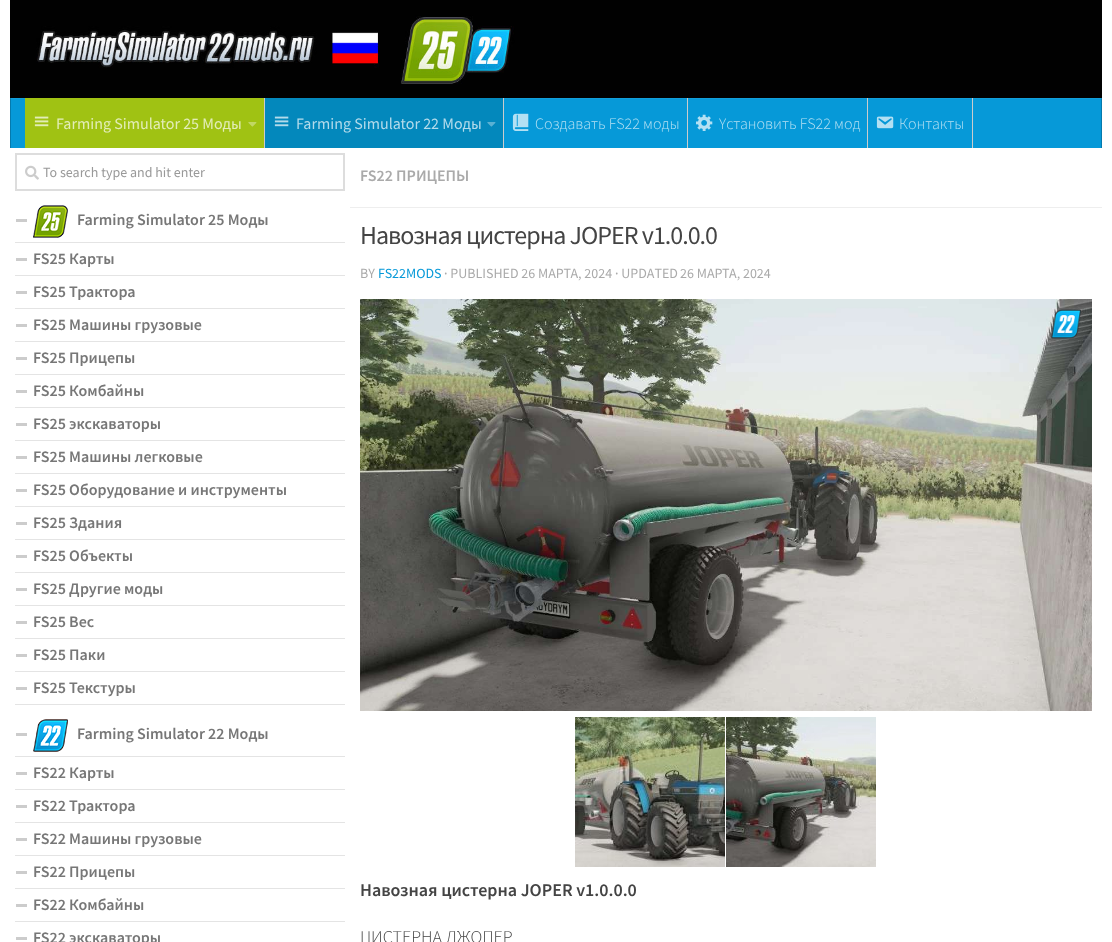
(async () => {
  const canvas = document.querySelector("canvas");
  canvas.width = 1112;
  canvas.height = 942;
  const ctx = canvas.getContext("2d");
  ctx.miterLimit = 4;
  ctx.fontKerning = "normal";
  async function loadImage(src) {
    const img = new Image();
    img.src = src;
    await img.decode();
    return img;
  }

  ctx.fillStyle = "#ffffff";
  ctx.fillRect(0, 0, 1112, 942);
  ctx.drawImage(await loadImage("img/1.png"), 10, 0, 1092, 98);
  for (const [x, y, w, h, color] of [
    [11, 99, 1090, 49, "#0699d8"],
    [10, 98, 1092, 1, "#129eda"],
    [1101, 98, 1, 50, "#057aad"],
    [1101, 98, 1, 1, "#1281b1"],
    [10, 98, 1, 50, "#057aad"],
    [10, 98, 1, 1, "#1281b1"],
    [25, 98, 239, 50, "#a0c213"],
    [264, 98, 1, 50, "#cccccc"],
  ]) {
    ctx.fillStyle = color;
    ctx.fillRect(x, y, w, h);
  }
  ctx.drawImage(await loadImage("img/2.png"), 34, 116, 15, 11);
  ctx.drawImage(await loadImage("img/3.png"), 248, 122, 9, 5);
  ctx.fillStyle = "#0388bc";
  ctx.fillRect(265, 98, 238, 50);
  ctx.fillStyle = "#cccccc";
  ctx.fillRect(503, 98, 1, 50);
  ctx.drawImage(await loadImage("img/4.png"), 274, 116, 15, 11);
  ctx.drawImage(await loadImage("img/5.png"), 487, 122, 9, 5);
  ctx.fillRect(687, 98, 1, 50);
  ctx.drawImage(await loadImage("img/6.png"), 512, 113, 17, 18);
  ctx.fillRect(867, 98, 1, 50);
  ctx.drawImage(await loadImage("img/7.png"), 696, 114, 17, 17);
  ctx.fillRect(972, 98, 1, 50);
  ctx.drawImage(await loadImage("img/8.png"), 876, 116, 18, 13);
  ctx.strokeStyle = "#dddddd";
  ctx.lineWidth = 2;
  ctx.strokeRect(16, 154, 328, 36);
  ctx.drawImage(await loadImage("img/9.png"), 25, 165, 14, 15);
  ctx.fillStyle = "#e4e4e4";
  ctx.fillRect(15, 242, 330, 1);
  ctx.fillStyle = "#cccccc";
  ctx.fillRect(16, 219, 11, 3);
  ctx.drawImage(await loadImage("img/10.png"), 33, 205, 35, 33);
  for (const [x, y, w, h, color] of [
    [15, 275, 330, 1, "#e4e4e4"],
    [16, 258, 11, 3, "#cccccc"],
    [15, 308, 330, 1, "#e4e4e4"],
    [16, 291, 11, 3, "#cccccc"],
    [15, 341, 330, 1, "#e4e4e4"],
    [16, 324, 11, 3, "#cccccc"],
    [15, 374, 330, 1, "#e4e4e4"],
    [16, 357, 11, 3, "#cccccc"],
    [15, 407, 330, 1, "#e4e4e4"],
    [16, 390, 11, 3, "#cccccc"],
    [15, 440, 330, 1, "#e4e4e4"],
    [16, 423, 11, 3, "#cccccc"],
    [15, 473, 330, 1, "#e4e4e4"],
    [16, 456, 11, 3, "#cccccc"],
    [15, 506, 330, 1, "#e4e4e4"],
    [16, 489, 11, 3, "#cccccc"],
    [15, 539, 330, 1, "#e4e4e4"],
    [16, 522, 11, 3, "#cccccc"],
    [15, 572, 330, 1, "#e4e4e4"],
    [16, 555, 11, 3, "#cccccc"],
    [15, 605, 330, 1, "#e4e4e4"],
    [16, 588, 11, 3, "#cccccc"],
    [15, 638, 330, 1, "#e4e4e4"],
    [16, 621, 11, 3, "#cccccc"],
    [15, 671, 330, 1, "#e4e4e4"],
    [16, 654, 11, 3, "#cccccc"],
    [15, 704, 330, 1, "#e4e4e4"],
    [16, 687, 11, 3, "#cccccc"],
    [15, 756, 330, 1, "#e4e4e4"],
    [16, 733, 11, 3, "#cccccc"],
  ]) {
    ctx.fillStyle = color;
    ctx.fillRect(x, y, w, h);
  }
  ctx.drawImage(await loadImage("img/11.png"), 33, 719, 35, 33);
  for (const [x, y, w, h, color] of [
    [15, 789, 330, 1, "#e4e4e4"],
    [16, 772, 11, 3, "#cccccc"],
    [15, 822, 330, 1, "#e4e4e4"],
    [16, 805, 11, 3, "#cccccc"],
    [15, 855, 330, 1, "#e4e4e4"],
    [16, 838, 11, 3, "#cccccc"],
    [15, 888, 330, 1, "#e4e4e4"],
    [16, 871, 11, 3, "#cccccc"],
    [15, 921, 330, 1, "#e4e4e4"],
    [16, 904, 11, 3, "#cccccc"],
    [16, 937, 11, 3, "#cccccc"],
    [350, 207, 752, 1, "#eeeeee"],
  ]) {
    ctx.fillStyle = color;
    ctx.fillRect(x, y, w, h);
  }
  ctx.drawImage(await loadImage("img/12.png"), 360, 299, 732, 412);
  ctx.drawImage(await loadImage("img/13.png"), 1051, 309, 30, 30);
  ctx.drawImage(await loadImage("img/14.png"), 575, 717, 150, 150);
  ctx.drawImage(await loadImage("img/15.png"), 726, 717, 150, 150);
  ctx.font = "16px Source Sans Pro";
  ctx.fillStyle = "#e3edb8";
  ctx.fillText("Farming Simulator 25 Моды", 56, 129);
  ctx.fillStyle = "#b3dbeb";
  ctx.fillText("Farming Simulator 22 Моды", 296, 129);
  ctx.font = "300 16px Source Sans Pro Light";
  ctx.fillStyle = "#b4e0f3";
  for (const [text, x, y] of [
    ["Cоздавать FS22 моды", 535, 129],
    ["Yстановить FS22 мод", 719, 129],
    ["Контакты", 899, 129],
  ]) {
    ctx.fillText(text, x, y);
  }
  ctx.font = "14px Source Sans Pro";
  ctx.fillStyle = "#999999";
  ctx.fillText("To search type and hit enter", 43, 177);
  ctx.font = "600 16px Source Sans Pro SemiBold";
  ctx.fillStyle = "#777777";
  for (const [text, x, y] of [
    ["Farming Simulator 25 Моды", 77, 225],
    ["FS25 Карты", 33, 264],
    ["FS25 Трактора", 33, 297],
    ["FS25 Машины грузовые", 33, 330],
    ["FS25 Прицепы", 33, 363],
    ["FS25 Комбайны", 33, 396],
    ["FS25 экскаваторы", 33, 429],
    ["FS25 Машины легковые", 33, 462],
    ["FS25 Оборудование и инструменты", 33, 495],
    ["FS25 Здания", 33, 528],
    ["FS25 Объекты", 33, 561],
    ["FS25 Другие моды", 33, 594],
    ["FS25 Вес", 33, 627],
    ["FS25 Пaки", 33, 660],
    ["FS25 Текстуры", 33, 693],
    ["Farming Simulator 22 Моды", 77, 739],
    ["FS22 Карты", 33, 778],
    ["FS22 Трактора", 33, 811],
    ["FS22 Машины грузовые", 33, 844],
    ["FS22 Прицепы", 33, 877],
    ["FS22 Комбайны", 33, 910],
    ["FS22 экскаваторы", 33, 943],
  ]) {
    ctx.fillText(text, x, y);
  }
  ctx.fillStyle = "#aaaaaa";
  ctx.fillText("FS22 ПРИЦЕПЫ", 360, 181);
  ctx.letterSpacing = "-1px";
  ctx.font = "26px Source Sans Pro";
  ctx.fillStyle = "#444444";
  ctx.fillText("Навозная цистерна JOPER v1.0.0.0", 360, 244);
  ctx.letterSpacing = "0px";
  ctx.font = "14px Source Sans Pro";
  ctx.fillStyle = "#aaaaaa";
  ctx.fillText("BY", 360, 278);
  ctx.fillStyle = "#0699d8";
  ctx.fillText("FS22MODS", 378, 278);
  ctx.fillStyle = "#aaaaaa";
  for (const [text, x, y] of [
    ["· PUBLISHED 26 МАРТА, 2024", 444, 278],
    ["· UPDATED", 615, 278],
    ["26 МАРТА, 2024", 680, 278],
  ]) {
    ctx.fillText(text, x, y);
  }
  ctx.font = "600 18px Source Sans Pro SemiBold";
  ctx.fillStyle = "#444444";
  ctx.fillText("Навозная цистерна JOPER v1.0.0.0", 360, 896);
  ctx.font = "300 18px Source Sans Pro Light";
  ctx.fillText("ЦИСТЕРНА ДЖОПЕР", 360, 943);
})();
